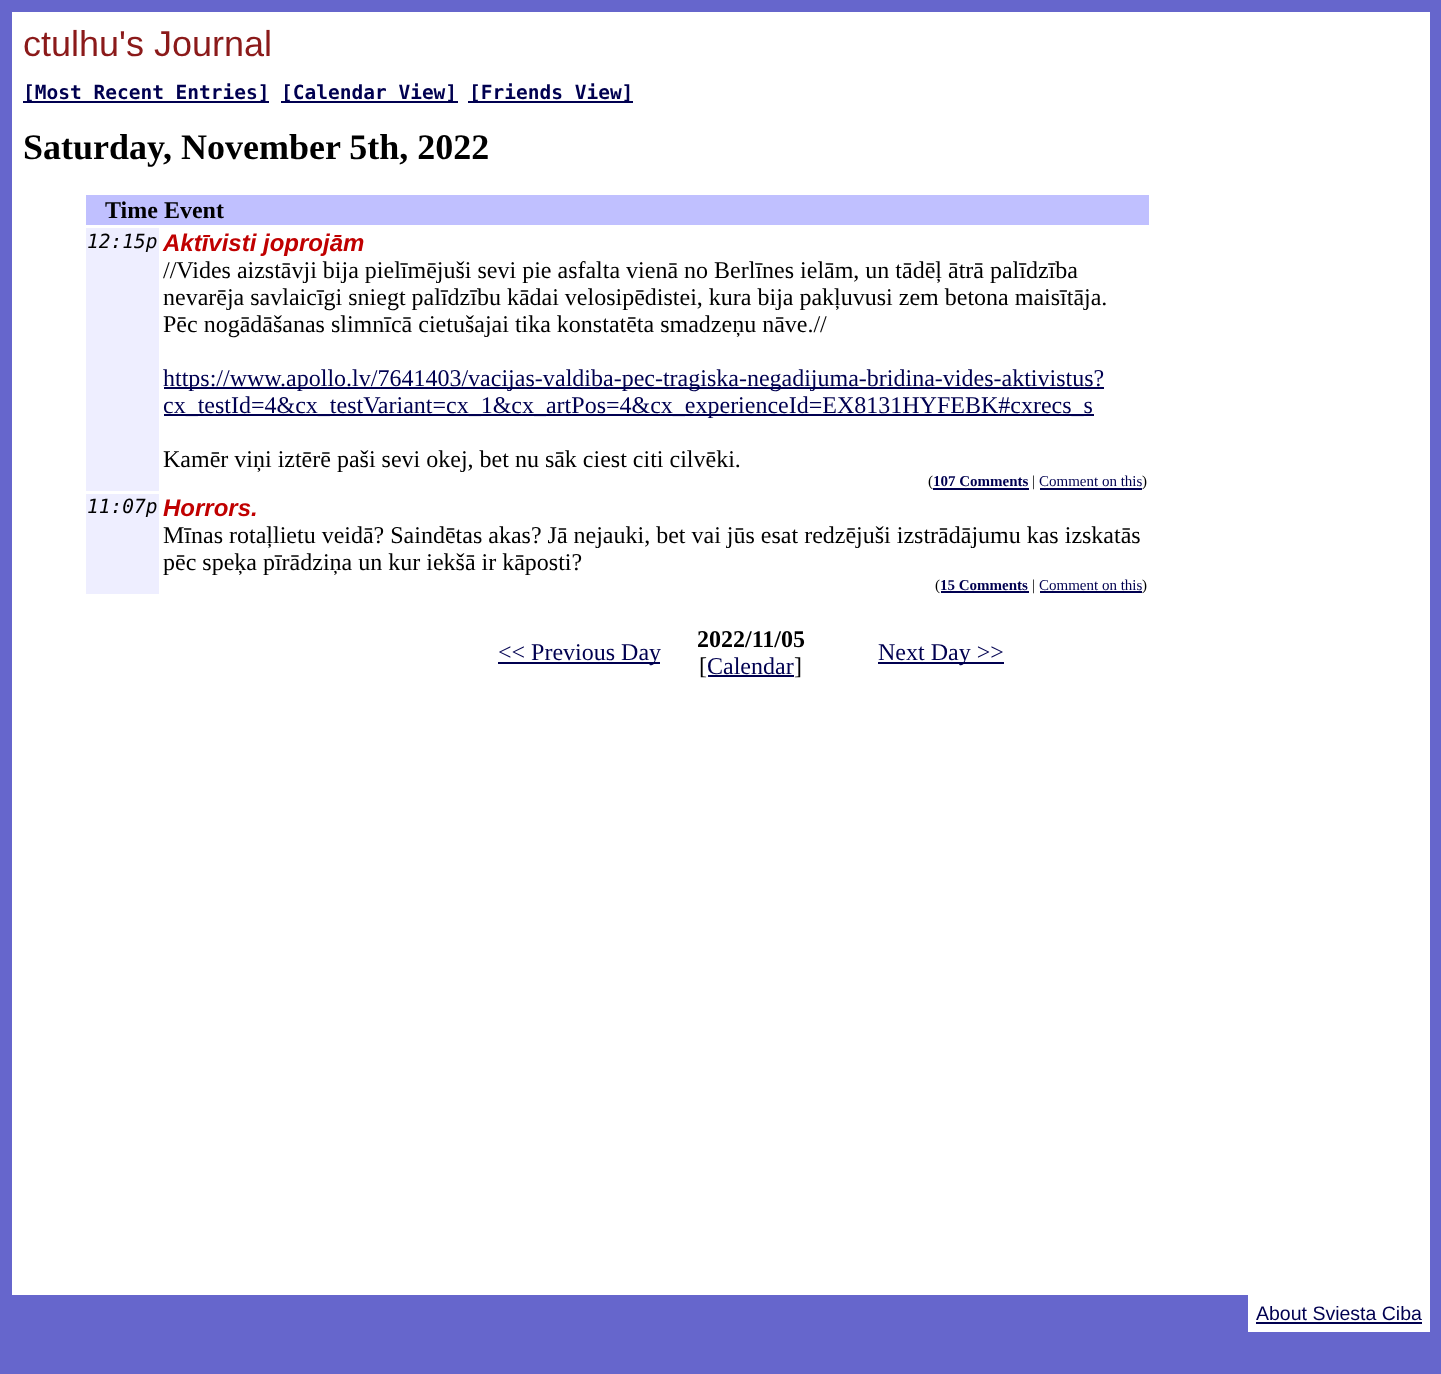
(async () => {
  const canvas = document.querySelector("canvas");
  canvas.width = 1441;
  canvas.height = 1374;
  const ctx = canvas.getContext("2d");
  ctx.miterLimit = 4;
  ctx.fontKerning = "normal";

  ctx.fillStyle = "#6666cc";
  ctx.fillRect(0, 0, 1441, 1374);
  for (const [x, y, w, h, color] of [
    [12, 12, 1418, 1283, "#ffffff"],
    [23, 101, 246, 2, "#000050"],
    [281, 101, 177, 2, "#000050"],
    [468, 101, 165, 2, "#000050"],
    [86, 195, 1063, 30, "#c0c0ff"],
    [86, 228, 73, 263, "#eeeeff"],
    [164, 387, 391, 2, "#000050"],
    [555, 387, 549, 2, "#000050"],
    [164, 414, 930, 2, "#000050"],
    [933, 488, 96, 2, "#000050"],
    [1040, 488, 102, 2, "#000050"],
    [86, 494, 73, 100, "#eeeeff"],
    [941, 591, 88, 2, "#000050"],
    [1040, 591, 102, 2, "#000050"],
    [498, 662, 162, 2, "#000050"],
    [708, 675, 86, 2, "#000050"],
    [878, 662, 126, 2, "#000050"],
    [1248, 1295, 182, 37, "#ffffff"],
    [1256, 1322, 166, 2, "#000050"],
  ]) {
    ctx.fillStyle = color;
    ctx.fillRect(x, y, w, h);
  }
  ctx.font = "36px Liberation Sans";
  ctx.fillStyle = "#8b1a1a";
  ctx.fillText("ctulhu's Journal", 23, 56);
  ctx.font = "bold 19.5px DejaVu Sans Mono";
  ctx.fillStyle = "#000050";
  for (const [text, x, y] of [
    ["[Most Recent Entries]", 23, 99],
    ["[Calendar View]", 281, 99],
    ["[Friends View]", 469, 99],
  ]) {
    ctx.fillText(text, x, y);
  }
  ctx.font = "bold 36px Liberation Serif";
  ctx.fillStyle = "#000000";
  ctx.fillText("Saturday, November 5th, 2022", 23, 159);
  ctx.font = "bold 24px Liberation Serif";
  ctx.fillText("Time Event", 105, 218);
  ctx.font = "italic 19.5px DejaVu Sans Mono";
  ctx.fillText("12:15p", 87, 248);
  ctx.font = "italic bold 24px Liberation Sans";
  ctx.fillStyle = "#c00000";
  ctx.fillText("Aktīvisti joprojām", 163, 251);
  ctx.font = "24px Liberation Serif";
  ctx.fillStyle = "#000000";
  for (const [text, x, y] of [
    ["//Vides aizstāvji bija pielīmējuši sevi pie asfalta vienā no Berlīnes ielām, un tādēļ ātrā palīdzība", 163, 278],
    ["nevarēja savlaicīgi sniegt palīdzību kādai velosipēdistei, kura bija pakļuvusi zem betona maisītāja.", 163, 305],
    ["Pēc nogādāšanas slimnīcā cietušajai tika konstatēta smadzeņu nāve.//", 163, 332],
  ]) {
    ctx.fillText(text, x, y);
  }
  ctx.fillStyle = "#000050";
  for (const [text, x, y] of [
    ["https://www.apollo.lv/7641403/vacijas-v", 163, 386],
    ["aldiba-pec-tragiska-negadijuma-bridina-vides-aktivistus?", 555, 386],
    ["cx_testId=4&cx_testVariant=cx_1&cx_artPos=4&cx_experienceId=EX8131HYFEBK#cxrecs_s", 163, 413],
  ]) {
    ctx.fillText(text, x, y);
  }
  ctx.fillStyle = "#000000";
  ctx.fillText("Kamēr viņi iztērē paši sevi okej, bet nu sāk ciest citi cilvēki.", 163, 467);
  ctx.font = "15px Liberation Serif";
  ctx.fillText("(", 928, 486);
  ctx.font = "bold 15px Liberation Serif";
  ctx.fillStyle = "#000050";
  ctx.fillText("107 Comments", 933, 486);
  ctx.font = "15px Liberation Serif";
  ctx.fillStyle = "#000000";
  ctx.fillText("|", 1032, 486);
  ctx.fillStyle = "#000050";
  ctx.fillText("Comment on this", 1039, 486);
  ctx.fillStyle = "#000000";
  ctx.fillText(")", 1142, 486);
  ctx.font = "italic 19.5px DejaVu Sans Mono";
  ctx.fillText("11:07p", 87, 513);
  ctx.font = "italic bold 24px Liberation Sans";
  ctx.fillStyle = "#c00000";
  ctx.fillText("Horrors.", 163, 516);
  ctx.font = "24px Liberation Serif";
  ctx.fillStyle = "#000000";
  ctx.fillText("Mīnas rotaļlietu veidā? Saindētas akas? Jā nejauki, bet vai jūs esat redzējuši izstrādājumu kas izskatās", 163, 543);
  ctx.fillText("pēc speķa pīrādziņa un kur iekšā ir kāposti?", 163, 570);
  ctx.font = "15px Liberation Serif";
  ctx.fillText("(", 935, 590);
  ctx.font = "bold 15px Liberation Serif";
  ctx.fillStyle = "#000050";
  ctx.fillText("15 Comments", 940, 590);
  ctx.font = "15px Liberation Serif";
  ctx.fillStyle = "#000000";
  ctx.fillText("|", 1032, 590);
  ctx.fillStyle = "#000050";
  ctx.fillText("Comment on this", 1039, 590);
  ctx.fillStyle = "#000000";
  ctx.fillText(")", 1142, 590);
  ctx.font = "24px Liberation Serif";
  ctx.fillStyle = "#000050";
  ctx.fillText("<< Previous Day", 498, 660);
  ctx.font = "bold 24px Liberation Serif";
  ctx.fillStyle = "#000000";
  ctx.fillText("2022/11/05", 697, 647);
  ctx.font = "24px Liberation Serif";
  ctx.fillText("[", 699, 674);
  ctx.fillStyle = "#000050";
  ctx.fillText("Calendar", 707, 674);
  ctx.fillStyle = "#000000";
  ctx.fillText("]", 794, 674);
  ctx.fillStyle = "#000050";
  ctx.fillText("Next Day >>", 878, 660);
  ctx.font = "19.5px Liberation Sans";
  ctx.fillText("About Sviesta Ciba", 1256, 1320);
})();
